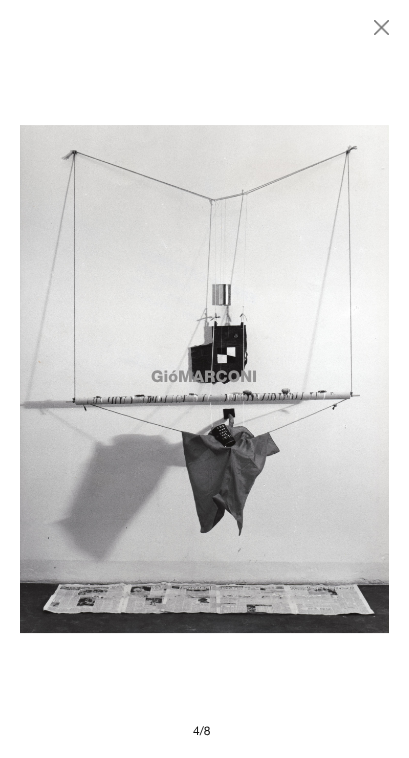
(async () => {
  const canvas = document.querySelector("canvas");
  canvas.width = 409;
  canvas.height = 758;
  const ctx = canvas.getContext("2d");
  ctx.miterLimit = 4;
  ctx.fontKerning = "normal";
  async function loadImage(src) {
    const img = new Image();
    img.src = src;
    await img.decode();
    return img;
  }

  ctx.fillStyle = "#ffffff";
  ctx.fillRect(0, 0, 409, 758);
  ctx.drawImage(await loadImage("img/1.png"), 374, 20, 15, 15);
  ctx.drawImage(await loadImage("img/2.png"), 20, 125, 369, 509);
  ctx.font = "900 16px Helvetica Neue";
  ctx.fillStyle = "#939292";
  ctx.fillText("GióMARCONI", 151, 382);
  ctx.font = "12px Helvetica Neue";
  ctx.fillStyle = "#111111";
  ctx.fillText("4/8", 193, 735);
})();
